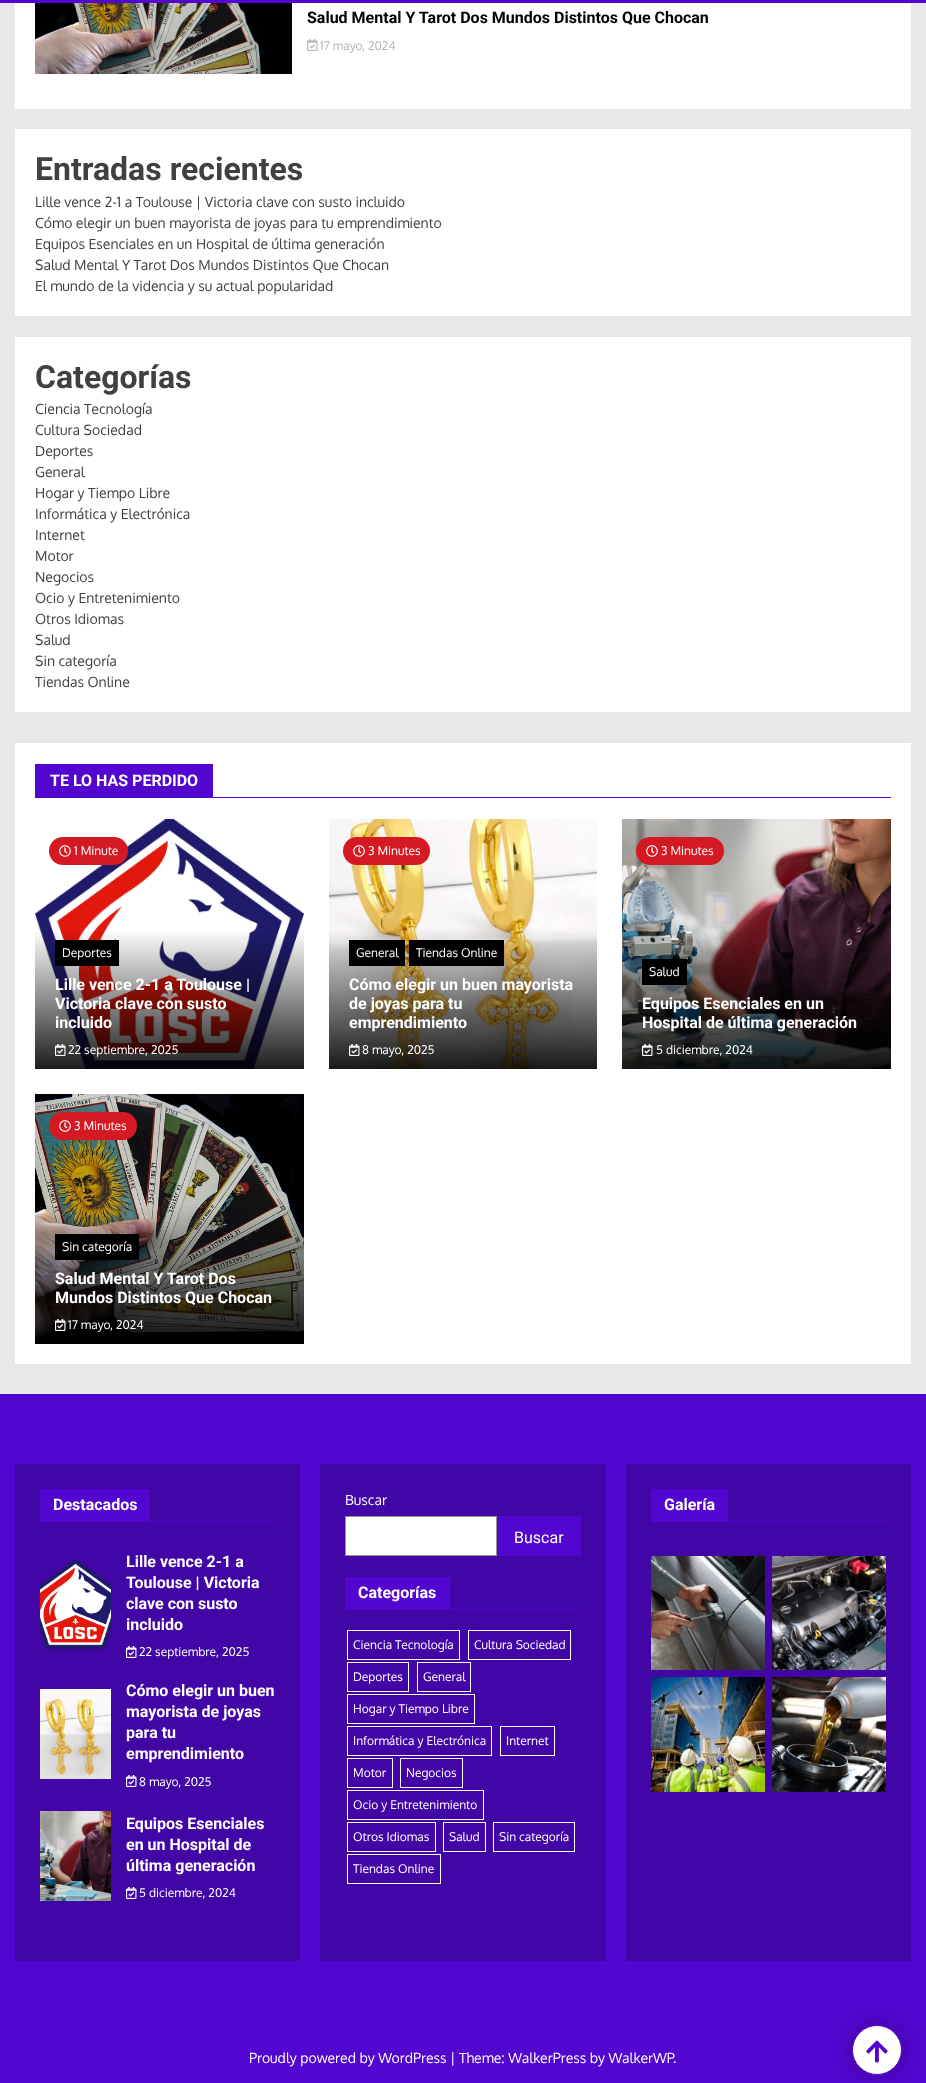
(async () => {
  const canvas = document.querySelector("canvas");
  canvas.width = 926;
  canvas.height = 2083;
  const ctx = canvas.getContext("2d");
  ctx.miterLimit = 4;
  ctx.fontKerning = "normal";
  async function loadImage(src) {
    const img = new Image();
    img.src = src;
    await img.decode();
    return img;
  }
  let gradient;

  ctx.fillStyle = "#e8e8e8";
  ctx.fillRect(0, 0, 926, 2083);
  ctx.fillStyle = "#5306cf";
  ctx.fillRect(0, 0, 926, 3);
  ctx.fillStyle = "#ffffff";
  ctx.fillRect(15, 3, 896, 106);
  ctx.drawImage(await loadImage("img/1.png"), 35, 3, 257, 71);
  ctx.drawImage(await loadImage("img/2.png"), 307, 39, 11, 12);
  for (const [x, y, w, h, color] of [
    [15, 129, 896, 187, "#ffffff"],
    [15, 337, 896, 375, "#ffffff"],
    [15, 743, 896, 621, "#ffffff"],
    [35, 797, 856, 1, "#5306cf"],
    [35, 764, 178, 33, "#5306cf"],
  ]) {
    ctx.fillStyle = color;
    ctx.fillRect(x, y, w, h);
  }
  ctx.drawImage(await loadImage("img/3.png"), 35, 819, 269, 250);
  ctx.fillStyle = "#d51922";
  ctx.beginPath();
  ctx.roundRect(49, 837, 79, 28, 14);
  ctx.fill();
  ctx.drawImage(await loadImage("img/4.png"), 59, 845, 12, 12);
  gradient = ctx.createLinearGradient(170, 929, 170, 1069);
  gradient.addColorStop(0, "rgba(0, 0, 0, 0)");
  gradient.addColorStop(1, "rgba(0, 0, 0, 0.89)");
  ctx.fillStyle = gradient;
  ctx.fillRect(35, 932, 269, 137);
  ctx.fillStyle = "#000000";
  ctx.fillRect(55, 940, 64, 26);
  ctx.drawImage(await loadImage("img/5.png"), 55, 1044, 11, 12);
  ctx.drawImage(await loadImage("img/6.png"), 329, 819, 268, 250);
  ctx.fillStyle = "#d51922";
  ctx.beginPath();
  ctx.roundRect(343, 837, 87, 28, 14);
  ctx.fill();
  ctx.drawImage(await loadImage("img/4.png"), 353, 845, 12, 12);
  ctx.fillStyle = "#000000";
  ctx.fillRect(349, 940, 56, 26);
  ctx.fillRect(409, 940, 95, 26);
  ctx.drawImage(await loadImage("img/7.png"), 349, 1044, 11, 12);
  ctx.drawImage(await loadImage("img/8.png"), 622, 819, 269, 250);
  ctx.fillStyle = "#d51922";
  ctx.beginPath();
  ctx.roundRect(636, 837, 88, 28, 14);
  ctx.fill();
  ctx.drawImage(await loadImage("img/4.png"), 646, 845, 12, 12);
  ctx.fillStyle = "#000000";
  ctx.fillRect(642, 959, 45, 26);
  ctx.drawImage(await loadImage("img/9.png"), 642, 1044, 11, 12);
  ctx.drawImage(await loadImage("img/10.png"), 35, 1094, 269, 250);
  ctx.fillStyle = "#d51922";
  ctx.beginPath();
  ctx.roundRect(49, 1112, 88, 28, 14);
  ctx.fill();
  ctx.drawImage(await loadImage("img/4.png"), 59, 1120, 12, 12);
  ctx.fillStyle = "#000000";
  ctx.fillRect(55, 1234, 84, 26);
  ctx.drawImage(await loadImage("img/11.png"), 55, 1319, 11, 12);
  for (const [x, y, w, h, color] of [
    [0, 1394, 926, 689, "#5306cf"],
    [15, 1464, 285, 497, "#4205a6"],
    [40, 1521, 235, 1, "#5306cf"],
    [40, 1489, 110, 32, "#5306cf"],
  ]) {
    ctx.fillStyle = color;
    ctx.fillRect(x, y, w, h);
  }
  ctx.drawImage(await loadImage("img/12.png"), 40, 1559, 71, 90);
  ctx.drawImage(await loadImage("img/13.png"), 126, 1646, 11, 12);
  ctx.drawImage(await loadImage("img/14.png"), 40, 1689, 71, 90);
  ctx.drawImage(await loadImage("img/13.png"), 126, 1775, 11, 12);
  ctx.drawImage(await loadImage("img/15.png"), 40, 1811, 71, 90);
  ctx.drawImage(await loadImage("img/13.png"), 126, 1887, 11, 12);
  ctx.fillStyle = "#4205a6";
  ctx.fillRect(320, 1464, 286, 497);
  ctx.fillStyle = "#ffffff";
  ctx.beginPath();
  ctx.rect(345.5, 1516.5, 151, 39);
  ctx.fill();
  ctx.strokeStyle = "#949494";
  ctx.stroke();
  for (const [x, y, w, h, color] of [
    [497, 1516, 84, 40, "#5306cf"],
    [345, 1609, 236, 1, "#5306cf"],
    [345, 1577, 105, 32, "#5306cf"],
  ]) {
    ctx.fillStyle = color;
    ctx.fillRect(x, y, w, h);
  }
  ctx.strokeStyle = "#ffffff";
  ctx.strokeRect(347.5, 1630.5, 112, 29);
  ctx.strokeRect(468.5, 1630.5, 102, 29);
  ctx.strokeRect(347.5, 1662.5, 61, 29);
  ctx.strokeRect(417.5, 1662.5, 53, 29);
  ctx.strokeRect(347.5, 1694.5, 127, 29);
  ctx.strokeRect(347.5, 1726.5, 144, 29);
  ctx.strokeRect(500.5, 1726.5, 54, 29);
  ctx.strokeRect(347.5, 1758.5, 45, 29);
  ctx.strokeRect(400.5, 1758.5, 62, 29);
  ctx.strokeRect(347.5, 1790.5, 136, 29);
  ctx.strokeRect(347.5, 1822.5, 88, 29);
  ctx.strokeRect(443.5, 1822.5, 42, 29);
  ctx.strokeRect(493.5, 1822.5, 81, 29);
  ctx.strokeRect(347.5, 1854.5, 93, 29);
  for (const [x, y, w, h, color] of [
    [626, 1464, 285, 497, "#4205a6"],
    [651, 1521, 235, 1, "#5306cf"],
    [651, 1489, 77, 32, "#5306cf"],
  ]) {
    ctx.fillStyle = color;
    ctx.fillRect(x, y, w, h);
  }
  ctx.drawImage(await loadImage("img/16.png"), 651, 1556, 114, 114);
  ctx.drawImage(await loadImage("img/17.png"), 772, 1556, 114, 114);
  ctx.drawImage(await loadImage("img/18.png"), 651, 1677, 114, 115);
  ctx.drawImage(await loadImage("img/19.png"), 772, 1677, 114, 115);
  ctx.fillStyle = "rgba(0, 0, 0, 0.28)";
  ctx.filter = "blur(10px)";
  ctx.beginPath();
  ctx.roundRect(852, 2025, 50, 50, 25);
  ctx.fill();
  ctx.filter = "none";
  ctx.fillStyle = "#ffffff";
  ctx.beginPath();
  ctx.arc(877, 2050, 24.5, 0, Math.PI * 2);
  ctx.fill();
  ctx.strokeStyle = "#5306cf";
  ctx.stroke();
  ctx.drawImage(await loadImage("img/20.png"), 866, 2040, 22, 23);
  ctx.font = "bold 16px Roboto";
  ctx.fillStyle = "#000000";
  ctx.fillText("Salud Mental Y Tarot Dos Mundos Distintos Que Chocan", 307, 23);
  ctx.font = "12px Oxygen";
  ctx.fillStyle = "#b5b5b5";
  ctx.fillText("17 mayo, 2024", 320, 50);
  ctx.font = "bold 32px Roboto";
  ctx.fillStyle = "#404040";
  ctx.fillText("Entradas recientes", 35, 180);
  ctx.font = "14px Oxygen";
  for (const [text, x, y] of [
    ["Lille vence 2-1 a Toulouse | Victoria clave con susto incluido", 35, 207],
    ["Cómo elegir un buen mayorista de joyas para tu emprendimiento", 35, 228],
    ["Equipos Esenciales en un Hospital de última generación", 35, 249],
    ["Salud Mental Y Tarot Dos Mundos Distintos Que Chocan", 35, 270],
    ["El mundo de la videncia y su actual popularidad", 35, 291],
  ]) {
    ctx.fillText(text, x, y);
  }
  ctx.font = "bold 32px Roboto";
  ctx.fillText("Categorías", 35, 388);
  ctx.font = "14px Oxygen";
  for (const [text, x, y] of [
    ["Ciencia Tecnología", 35, 414],
    ["Cultura Sociedad", 35, 435],
    ["Deportes", 35, 456],
    ["General", 35, 477],
    ["Hogar y Tiempo Libre", 35, 498],
    ["Informática y Electrónica", 35, 519],
    ["Internet", 35, 540],
    ["Motor", 35, 561],
    ["Negocios", 35, 582],
    ["Ocio y Entretenimiento", 35, 603],
    ["Otros Idiomas", 35, 624],
    ["Salud", 35, 645],
    ["Sin categoría", 35, 666],
    ["Tiendas Online", 35, 687],
  ]) {
    ctx.fillText(text, x, y);
  }
  ctx.font = "bold 16px Roboto";
  ctx.fillStyle = "#ffffff";
  ctx.fillText("TE LO HAS PERDIDO", 50, 786);
  ctx.font = "12px Oxygen";
  ctx.fillText("1 Minute", 74, 855);
  ctx.fillText("Deportes", 62, 957);
  ctx.font = "bold 16px Roboto";
  for (const [text, x, y] of [
    ["Lille vence 2-1 a Toulouse |", 55, 990],
    ["Victoria clave con susto", 55, 1009],
    ["incluido", 55, 1028],
  ]) {
    ctx.fillText(text, x, y);
  }
  ctx.font = "12px Oxygen";
  for (const [text, x, y] of [
    ["22 septiembre, 2025", 68, 1054],
    ["3 Minutes", 368, 855],
    ["General", 356, 957],
    ["Tiendas Online", 416, 957],
  ]) {
    ctx.fillText(text, x, y);
  }
  ctx.font = "bold 16px Roboto";
  for (const [text, x, y] of [
    ["Cómo elegir un buen mayorista", 349, 990],
    ["de joyas para tu", 349, 1009],
    ["emprendimiento", 349, 1028],
  ]) {
    ctx.fillText(text, x, y);
  }
  ctx.font = "12px Oxygen";
  for (const [text, x, y] of [
    ["8 mayo, 2025", 362, 1054],
    ["3 Minutes", 661, 855],
    ["Salud", 649, 976],
  ]) {
    ctx.fillText(text, x, y);
  }
  ctx.font = "bold 16px Roboto";
  ctx.fillText("Equipos Esenciales en un", 642, 1009);
  ctx.fillText("Hospital de última generación", 642, 1028);
  ctx.font = "12px Oxygen";
  for (const [text, x, y] of [
    ["5 diciembre, 2024", 656, 1054],
    ["3 Minutes", 74, 1130],
    ["Sin categoría", 62, 1251],
  ]) {
    ctx.fillText(text, x, y);
  }
  ctx.font = "bold 16px Roboto";
  ctx.fillText("Salud Mental Y Tarot Dos", 55, 1284);
  ctx.fillText("Mundos Distintos Que Chocan", 55, 1303);
  ctx.font = "12px Oxygen";
  ctx.fillText("17 mayo, 2024", 68, 1329);
  ctx.font = "bold 16px Roboto";
  for (const [text, x, y] of [
    ["Destacados", 53, 1510],
    ["Lille vence 2-1 a", 126, 1567],
    ["Toulouse | Victoria", 126, 1588],
    ["clave con susto", 126, 1609],
    ["incluido", 126, 1630],
  ]) {
    ctx.fillText(text, x, y);
  }
  ctx.font = "12px Oxygen";
  ctx.fillText("22 septiembre, 2025", 139, 1656);
  ctx.font = "bold 16px Roboto";
  for (const [text, x, y] of [
    ["Cómo elegir un buen", 126, 1696],
    ["mayorista de joyas", 126, 1717],
    ["para tu", 126, 1738],
    ["emprendimiento", 126, 1759],
  ]) {
    ctx.fillText(text, x, y);
  }
  ctx.font = "12px Oxygen";
  ctx.fillText("8 mayo, 2025", 139, 1786);
  ctx.font = "bold 16px Roboto";
  for (const [text, x, y] of [
    ["Equipos Esenciales", 126, 1829],
    ["en un Hospital de", 126, 1850],
    ["última generación", 126, 1871],
  ]) {
    ctx.fillText(text, x, y);
  }
  ctx.font = "12px Oxygen";
  ctx.fillText("5 diciembre, 2024", 139, 1897);
  ctx.font = "14px Oxygen";
  ctx.fillText("Buscar", 345, 1505);
  ctx.font = "16px Roboto";
  ctx.fillText("Buscar", 514, 1543);
  ctx.font = "bold 16px Roboto";
  ctx.fillText("Categorías", 358, 1598);
  ctx.font = "12px Oxygen";
  for (const [text, x, y] of [
    ["Ciencia Tecnología", 353, 1649],
    ["Cultura Sociedad", 474, 1649],
    ["Deportes", 353, 1681],
    ["General", 423, 1681],
    ["Hogar y Tiempo Libre", 353, 1713],
    ["Informática y Electrónica", 353, 1745],
    ["Internet", 506, 1745],
    ["Motor", 353, 1777],
    ["Negocios", 406, 1777],
    ["Ocio y Entretenimiento", 353, 1809],
    ["Otros Idiomas", 353, 1841],
    ["Salud", 449, 1841],
    ["Sin categoría", 499, 1841],
    ["Tiendas Online", 353, 1873],
  ]) {
    ctx.fillText(text, x, y);
  }
  ctx.font = "bold 16px Roboto";
  ctx.fillText("Galería", 664, 1510);
  ctx.font = "14px Oxygen";
  ctx.fillText("Proudly powered by WordPress | Theme: WalkerPress by WalkerWP", 249, 2063);
  ctx.fillText(".", 673, 2063);
})();
